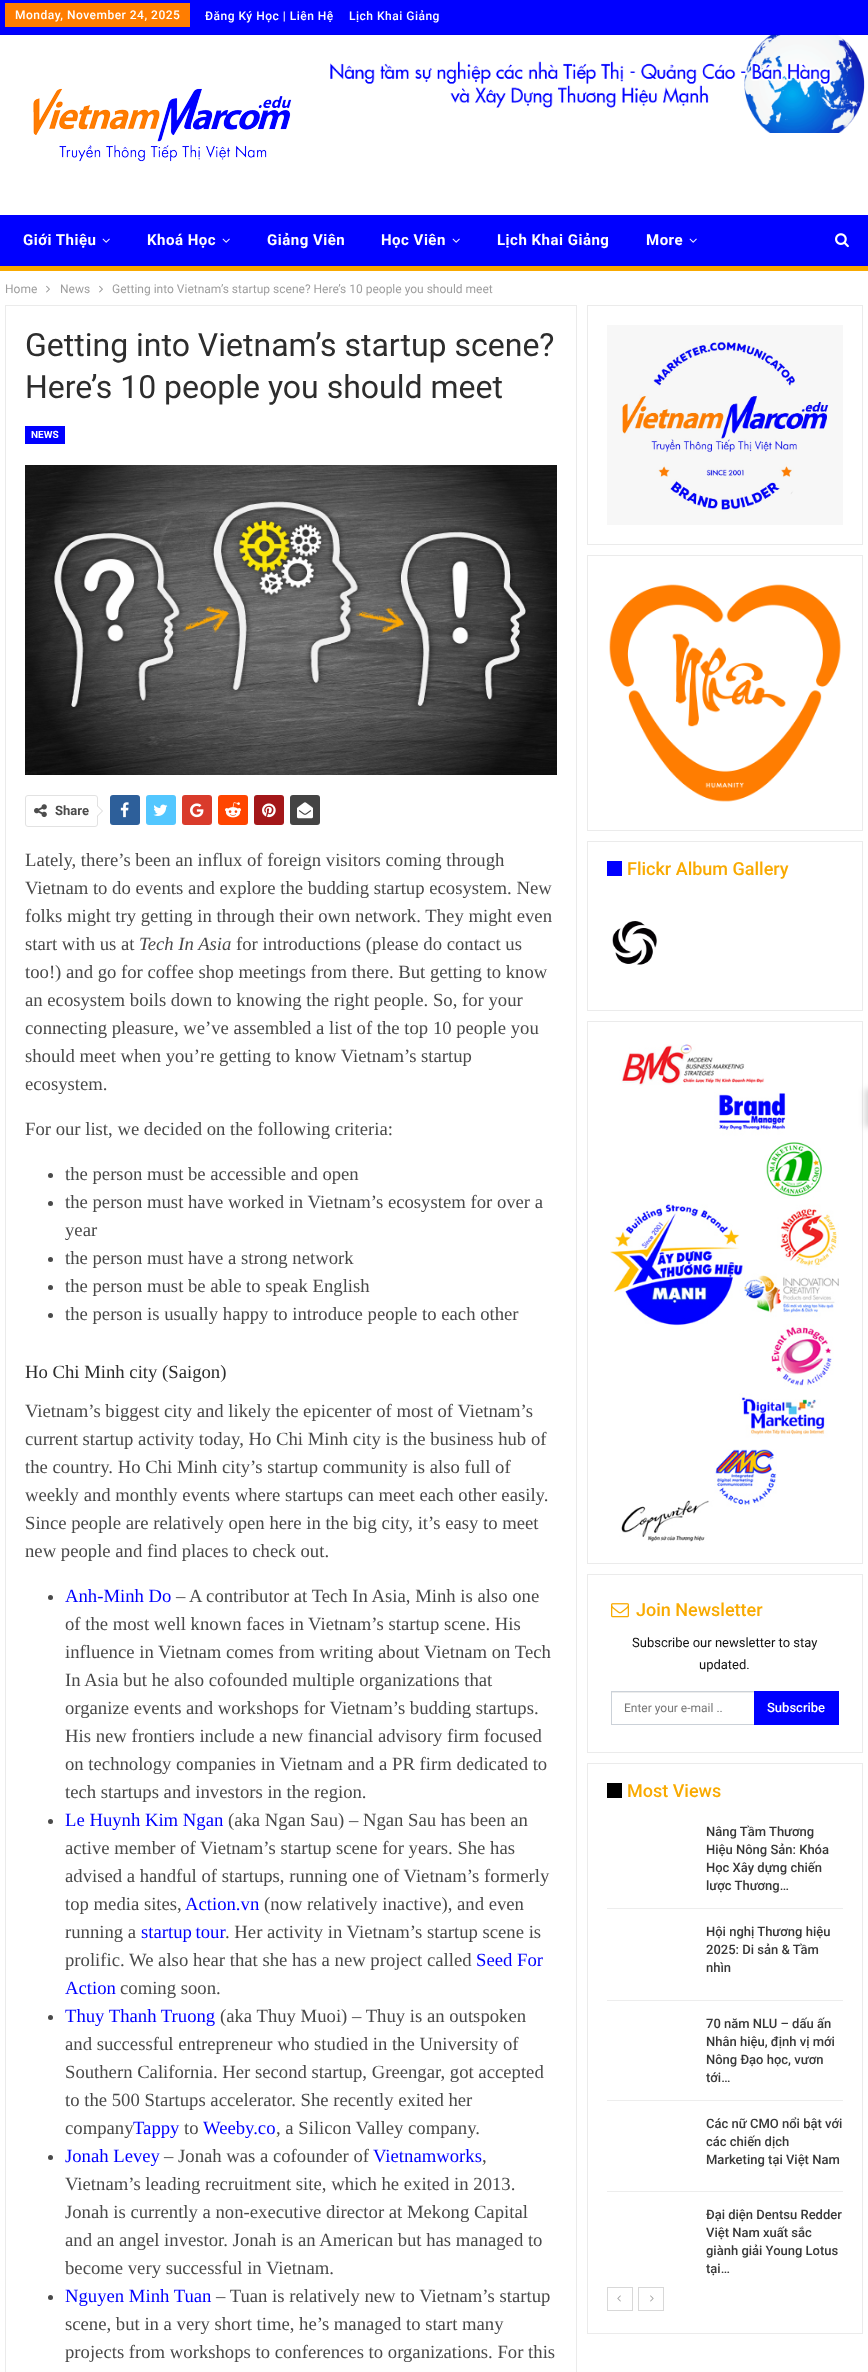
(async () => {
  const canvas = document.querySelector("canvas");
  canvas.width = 868;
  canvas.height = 2372;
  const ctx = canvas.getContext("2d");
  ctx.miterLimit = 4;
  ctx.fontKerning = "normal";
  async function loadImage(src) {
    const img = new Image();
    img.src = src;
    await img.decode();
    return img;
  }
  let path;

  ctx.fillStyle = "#ffffff";
  ctx.fillRect(0, 0, 868, 2372);
  for (const [x, y, w, h, color] of [
    [0, 0, 868, 34, "#0000ff"],
    [0, 34, 868, 1, "#0000ed"],
    [5, 3, 185, 24, "#ff7d00"],
  ]) {
    ctx.fillStyle = color;
    ctx.fillRect(x, y, w, h);
  }
  ctx.drawImage(await loadImage("img/1.png"), 330, 35, 535, 98);
  ctx.drawImage(await loadImage("img/2.png"), 33, 88, 259, 74);
  ctx.fillStyle = "#0000ff";
  ctx.fillRect(0, 215, 868, 51);
  ctx.fillStyle = "#f9aa00";
  ctx.fillRect(0, 266, 868, 5);
  ctx.drawImage(await loadImage("img/3.png"), 102, 238, 8, 5);
  ctx.drawImage(await loadImage("img/3.png"), 222, 238, 8, 5);
  ctx.drawImage(await loadImage("img/3.png"), 452, 238, 8, 5);
  ctx.drawImage(await loadImage("img/3.png"), 689, 238, 8, 5);
  ctx.drawImage(await loadImage("img/4.png"), 835, 233, 14, 15);
  ctx.drawImage(await loadImage("img/5.png"), 46, 285, 4, 8);
  ctx.drawImage(await loadImage("img/5.png"), 99, 285, 4, 8);
  ctx.strokeStyle = "#ebebeb";
  ctx.strokeRect(5.5, 305.5, 571, 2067);
  ctx.fillStyle = "#0000ff";
  ctx.fillRect(25, 426, 40, 18);
  ctx.drawImage(await loadImage("img/6.png"), 25, 465, 532, 310);
  ctx.beginPath();
  ctx.roundRect(25.5, 795.5, 72, 31, 2.5);
  ctx.strokeStyle = "#e2e2e2";
  ctx.stroke();
  ctx.drawImage(await loadImage("img/7.png"), 34, 804, 13, 14);
  ctx.fillStyle = "#d7d7d7";
  path = new Path2D("M97 817V805L103 811Z");
  ctx.fill(path);
  ctx.fillStyle = "#ffffff";
  path = new Path2D("M97 816V806L102 811Z");
  ctx.fill(path);
  ctx.fillStyle = "#2d5f9a";
  ctx.beginPath();
  ctx.roundRect(110, 795, 30, 30, 3);
  ctx.fill();
  ctx.drawImage(await loadImage("img/8.png"), 120, 802, 9, 16);
  ctx.fillStyle = "#53c7ff";
  ctx.beginPath();
  ctx.roundRect(146, 795, 30, 30, 3);
  ctx.fill();
  ctx.drawImage(await loadImage("img/9.png"), 153, 804, 15, 12);
  ctx.fillStyle = "#d93b2b";
  ctx.beginPath();
  ctx.roundRect(182, 795, 30, 30, 3);
  ctx.fill();
  ctx.drawImage(await loadImage("img/10.png"), 190, 803, 14, 15);
  ctx.fillStyle = "#ff4500";
  ctx.beginPath();
  ctx.roundRect(218, 795, 30, 30, 3);
  ctx.fill();
  ctx.drawImage(await loadImage("img/11.png"), 225, 802, 16, 16);
  ctx.fillStyle = "#a41719";
  ctx.beginPath();
  ctx.roundRect(254, 795, 30, 30, 3);
  ctx.fill();
  ctx.drawImage(await loadImage("img/12.png"), 262, 803, 14, 15);
  ctx.fillStyle = "#444444";
  ctx.beginPath();
  ctx.roundRect(290, 795, 30, 30, 3);
  ctx.fill();
  ctx.drawImage(await loadImage("img/13.png"), 297, 802, 16, 17);
  ctx.fillStyle = "#4a4a4a";
  ctx.beginPath();
  ctx.arc(50.5, 1175.5, 2.5, 0, Math.PI * 2);
  ctx.fill();
  ctx.beginPath();
  ctx.arc(50.5, 1203.5, 2.5, 0, Math.PI * 2);
  ctx.fill();
  ctx.beginPath();
  ctx.arc(50.5, 1259.5, 2.5, 0, Math.PI * 2);
  ctx.fill();
  ctx.beginPath();
  ctx.arc(50.5, 1287.5, 2.5, 0, Math.PI * 2);
  ctx.fill();
  ctx.beginPath();
  ctx.arc(50.5, 1315.5, 2.5, 0, Math.PI * 2);
  ctx.fill();
  ctx.beginPath();
  ctx.arc(50.5, 1597.5, 2.5, 0, Math.PI * 2);
  ctx.fill();
  ctx.beginPath();
  ctx.arc(50.5, 1821.5, 2.5, 0, Math.PI * 2);
  ctx.fill();
  ctx.beginPath();
  ctx.arc(50.5, 2017.5, 2.5, 0, Math.PI * 2);
  ctx.fill();
  ctx.beginPath();
  ctx.arc(50.5, 2157.5, 2.5, 0, Math.PI * 2);
  ctx.fill();
  ctx.beginPath();
  ctx.arc(50.5, 2297.5, 2.5, 0, Math.PI * 2);
  ctx.fill();
  ctx.strokeStyle = "#ebebeb";
  ctx.strokeRect(587.5, 305.5, 275, 239);
  ctx.drawImage(await loadImage("img/14.png"), 607, 325, 236, 200);
  ctx.strokeRect(587.5, 555.5, 275, 275);
  ctx.drawImage(await loadImage("img/15.png"), 609, 584, 232, 218);
  ctx.strokeRect(587.5, 841.5, 275, 169);
  ctx.fillStyle = "#0000ff";
  ctx.fillRect(607, 861, 15, 15);
  ctx.drawImage(await loadImage("img/16.png"), 612, 921, 45, 44);
  ctx.strokeRect(587.5, 1021.5, 275, 542);
  ctx.drawImage(await loadImage("img/17.png"), 610, 1044, 229, 498);
  ctx.strokeRect(587.5, 1574.5, 275, 178);
  ctx.drawImage(await loadImage("img/18.png"), 611, 1603, 18, 15);
  ctx.fillStyle = "#ececec";
  ctx.fillRect(612, 1692, 142, 1);
  ctx.strokeStyle = "#cbd1d8";
  ctx.strokeRect(611.5, 1691.5, 227, 33);
  ctx.fillStyle = "#0000ff";
  ctx.fillRect(754, 1691, 85, 34);
  ctx.strokeStyle = "#ebebeb";
  ctx.strokeRect(587.5, 1763.5, 275, 570);
  for (const [x, y, w, h, color] of [
    [607, 1783, 15, 15, "#000000"],
    [607, 1908, 236, 1, "#ededed"],
    [607, 2000, 236, 1, "#ededed"],
    [607, 2100, 236, 1, "#ededed"],
    [607, 2191, 236, 1, "#ededed"],
  ]) {
    ctx.fillStyle = color;
    ctx.fillRect(x, y, w, h);
  }
  ctx.strokeStyle = "#d8d8d8";
  ctx.strokeRect(607.5, 2287.5, 25, 23);
  ctx.drawImage(await loadImage("img/19.png"), 617, 2295, 4, 7);
  ctx.strokeRect(638.5, 2287.5, 25, 23);
  ctx.drawImage(await loadImage("img/20.png"), 650, 2295, 4, 7);
  ctx.fillStyle = "rgba(0, 0, 0, 0.16)";
  ctx.filter = "blur(3px)";
  ctx.beginPath();
  ctx.rect(865, 1089, 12, 38);
  ctx.fill();
  ctx.filter = "none";
  ctx.letterSpacing = "0.5px";
  ctx.font = "500 12px Roboto";
  ctx.fillStyle = "#ffffff";
  for (const [text, x, y] of [
    ["Monday, November 24, 2025", 15, 19],
    ["Đăng Ký Học | Liên Hệ", 205, 20],
    ["Lịch Khai Giảng", 349, 20],
  ]) {
    ctx.fillText(text, x, y);
  }
  ctx.font = "bold 15px Roboto";
  for (const [text, x, y] of [
    ["Giới Thiệu", 23, 245],
    ["Khoá Học", 147, 245],
    ["Giảng Viên", 267, 245],
    ["Học Viên", 381, 245],
    ["Lịch Khai Giảng", 497, 245],
    ["More", 646, 245],
  ]) {
    ctx.fillText(text, x, y);
  }
  ctx.letterSpacing = "0px";
  ctx.font = "12px Roboto";
  ctx.fillStyle = "#9e9e9e";
  for (const [text, x, y] of [
    ["Home", 5, 293],
    ["News", 60, 293],
    ["Getting into Vietnam’s startup scene? Here’s 10 people you should meet", 112, 293],
  ]) {
    ctx.fillText(text, x, y);
  }
  ctx.font = "32px Roboto";
  ctx.fillStyle = "#2d2d2d";
  ctx.fillText("Getting into Vietnam’s startup scene?", 25, 356);
  ctx.fillText("Here’s 10 people you should meet", 25, 398);
  ctx.font = "bold 10px Roboto";
  ctx.fillStyle = "#ffffff";
  ctx.fillText("NEWS", 31, 438);
  ctx.font = "bold 13px Roboto";
  ctx.fillStyle = "#4a4a4a";
  ctx.fillText("Share", 55, 815);
  ctx.font = "18.7px Liberation Serif";
  for (const [text, x, y] of [
    ["Lately, there’s been an influx of foreign visitors coming through", 25, 866],
    ["Vietnam to do events and explore the budding startup ecosystem. New", 25, 894],
    ["folks might try getting in through their own network. They might even", 25, 922],
    ["start with us at", 25, 950],
  ]) {
    ctx.fillText(text, x, y);
  }
  ctx.font = "italic 18.7px Liberation Serif";
  ctx.fillText("Tech In Asia", 139, 950);
  ctx.font = "18.7px Liberation Serif";
  for (const [text, x, y] of [
    ["for introductions (please do contact us", 236, 950],
    ["too!) and go for coffee shop meetings from there. But getting to know", 25, 978],
    ["an ecosystem boils down to knowing the right people. So, for your", 25, 1006],
    ["connecting pleasure, we’ve assembled a list of the top 10 people you", 25, 1034],
    ["should meet when you’re getting to know Vietnam’s startup", 25, 1062],
    ["ecosystem.", 25, 1090],
    ["For our list, we decided on the following criteria:", 25, 1135],
    ["the person must be accessible and open", 65, 1180],
    ["the person must have worked in Vietnam’s ecosystem for over a", 65, 1208],
    ["year", 65, 1236],
    ["the person must have a strong network", 65, 1264],
    ["the person must be able to speak English", 65, 1292],
    ["the person is usually happy to introduce people to each other", 65, 1320],
  ]) {
    ctx.fillText(text, x, y);
  }
  ctx.fillStyle = "#2d2d2d";
  ctx.fillText("Ho Chi Minh city (Saigon)", 25, 1378);
  ctx.fillStyle = "#4a4a4a";
  for (const [text, x, y] of [
    ["Vietnam’s biggest city and likely the epicenter of most of Vietnam’s", 25, 1417],
    ["current startup activity today, Ho Chi Minh city is the business hub of", 25, 1445],
    ["the country. Ho Chi Minh city’s startup community is also full of", 25, 1473],
    ["weekly and monthly events where startups can meet each other easily.", 25, 1501],
    ["Since people are relatively open here in the big city, it’s easy to meet", 25, 1529],
    ["new people and find places to check out.", 25, 1557],
  ]) {
    ctx.fillText(text, x, y);
  }
  ctx.fillStyle = "#0000ff";
  ctx.fillText("Anh-Minh Do", 65, 1602);
  ctx.fillStyle = "#4a4a4a";
  for (const [text, x, y] of [
    ["– A contributor at Tech In Asia, Minh is also one", 176, 1602],
    ["of the most well known faces in Vietnam’s startup scene. His", 65, 1630],
    ["influence in Vietnam comes from writing about Vietnam on Tech", 65, 1658],
    ["In Asia but he also cofounded multiple organizations that", 65, 1686],
    ["organize events and workshops for Vietnam’s budding startups.", 65, 1714],
    ["His new frontiers include a new financial advisory firm focused", 65, 1742],
    ["on technology companies in Vietnam and a PR firm dedicated to", 65, 1770],
    ["tech startups and investors in the region.", 65, 1798],
  ]) {
    ctx.fillText(text, x, y);
  }
  ctx.fillStyle = "#0000ff";
  ctx.fillText("Le Huynh Kim Ngan", 65, 1826);
  ctx.fillStyle = "#4a4a4a";
  for (const [text, x, y] of [
    ["(aka Ngan Sau) – Ngan Sau has been an", 228, 1826],
    ["active member of Vietnam’s startup scene for years. She has", 65, 1854],
    ["advised a handful of startups, running one of Vietnam’s formerly", 65, 1882],
    ["top media sites,", 65, 1910],
  ]) {
    ctx.fillText(text, x, y);
  }
  ctx.fillStyle = "#0000ff";
  ctx.fillText("Action.vn", 185, 1910);
  ctx.fillStyle = "#4a4a4a";
  ctx.fillText("(now relatively inactive), and even", 264, 1910);
  ctx.fillText("running a", 65, 1938);
  ctx.wordSpacing = "-1px";
  ctx.fillStyle = "#0000ff";
  ctx.fillText("startup tour", 141, 1938);
  ctx.wordSpacing = "0px";
  ctx.fillStyle = "#4a4a4a";
  ctx.fillText(". Her activity in Vietnam’s startup scene is", 225, 1938);
  ctx.fillText("prolific. We also hear that she has a new project called", 65, 1966);
  ctx.fillStyle = "#0000ff";
  ctx.fillText("Seed For", 476, 1966);
  ctx.fillText("Action", 65, 1994);
  ctx.fillStyle = "#4a4a4a";
  ctx.fillText("coming soon.", 120, 1994);
  ctx.fillStyle = "#0000ff";
  ctx.fillText("Thuy Thanh Truong", 65, 2022);
  ctx.fillStyle = "#4a4a4a";
  for (const [text, x, y] of [
    ["(aka Thuy Muoi) – Thuy is an outspoken", 220, 2022],
    ["and successful entrepreneur who studied in the University of", 65, 2050],
    ["Southern California. Her second startup, Greengar, got accepted", 65, 2078],
    ["to the 500 Startups accelerator. She recently exited her", 65, 2106],
    ["company", 65, 2134],
  ]) {
    ctx.fillText(text, x, y);
  }
  ctx.fillStyle = "#0000ff";
  ctx.fillText("Tappy", 133, 2134);
  ctx.fillStyle = "#4a4a4a";
  ctx.fillText("to", 184, 2134);
  ctx.fillStyle = "#0000ff";
  ctx.fillText("Weeby.co", 203, 2134);
  ctx.fillStyle = "#4a4a4a";
  ctx.fillText(", a Silicon Valley company.", 276, 2134);
  ctx.fillStyle = "#0000ff";
  ctx.fillText("Jonah Levey", 65, 2162);
  ctx.fillStyle = "#4a4a4a";
  ctx.fillText("– Jonah was a cofounder of", 164, 2162);
  ctx.fillStyle = "#0000ff";
  ctx.fillText("Vietnamworks", 373, 2162);
  ctx.fillStyle = "#4a4a4a";
  for (const [text, x, y] of [
    [",", 482, 2162],
    ["Vietnam’s leading recruitment site, which he exited in 2013.", 65, 2190],
    ["Jonah is currently a non-executive director at Mekong Capital", 65, 2218],
    ["and an angel investor. Jonah is an American but has managed to", 65, 2246],
    ["become very successful in Vietnam.", 65, 2274],
  ]) {
    ctx.fillText(text, x, y);
  }
  ctx.fillStyle = "#0000ff";
  ctx.fillText("Nguyen Minh Tuan", 65, 2302);
  ctx.fillStyle = "#4a4a4a";
  for (const [text, x, y] of [
    ["– Tuan is relatively new to Vietnam’s startup", 216, 2302],
    ["scene, but in a very short time, he’s managed to start many", 65, 2330],
    ["projects from workshops to conferences to organizations. For this", 65, 2358],
  ]) {
    ctx.fillText(text, x, y);
  }
  ctx.font = "500 18px Roboto";
  ctx.fillStyle = "#f9aa00";
  ctx.fillText("Flickr Album Gallery", 627, 875);
  ctx.fillText("Join Newsletter", 636, 1616);
  ctx.font = "13px Roboto";
  ctx.fillStyle = "#111111";
  ctx.fillText("Subscribe our newsletter to stay", 632, 1647);
  ctx.fillText("updated.", 699, 1669);
  ctx.font = "12px Roboto";
  ctx.fillStyle = "#757575";
  ctx.fillText("Enter your e-mail ..", 624, 1712);
  ctx.font = "500 13px Roboto";
  ctx.fillStyle = "#ffffff";
  ctx.fillText("Subscribe", 767, 1712);
  ctx.font = "500 18px Roboto";
  ctx.fillStyle = "#f9aa00";
  ctx.fillText("Most Views", 627, 1797);
  ctx.font = "500 13px Roboto";
  ctx.fillStyle = "#383838";
  for (const [text, x, y] of [
    ["Nâng Tầm Thương", 706, 1836],
    ["Hiệu Nông Sản: Khóa", 706, 1854],
    ["Học Xây dựng chiến", 706, 1872],
    ["lược Thương…", 706, 1890],
    ["Hội nghị Thương hiệu", 706, 1936],
    ["2025: Di sản & Tầm", 706, 1954],
    ["nhìn", 706, 1972],
    ["70 năm NLU – dấu ấn", 706, 2028],
    ["Nhân hiệu, định vị mới", 706, 2046],
    ["Nông Đạo học, vươn", 706, 2064],
    ["tới…", 706, 2082],
    ["Các nữ CMO nổi bật với", 706, 2128],
    ["các chiến dịch", 706, 2146],
    ["Marketing tại Việt Nam", 706, 2164],
    ["Đại diện Dentsu Redder", 706, 2219],
    ["Việt Nam xuất sắc", 706, 2237],
    ["giành giải Young Lotus", 706, 2255],
    ["tại…", 706, 2273],
  ]) {
    ctx.fillText(text, x, y);
  }
})();
